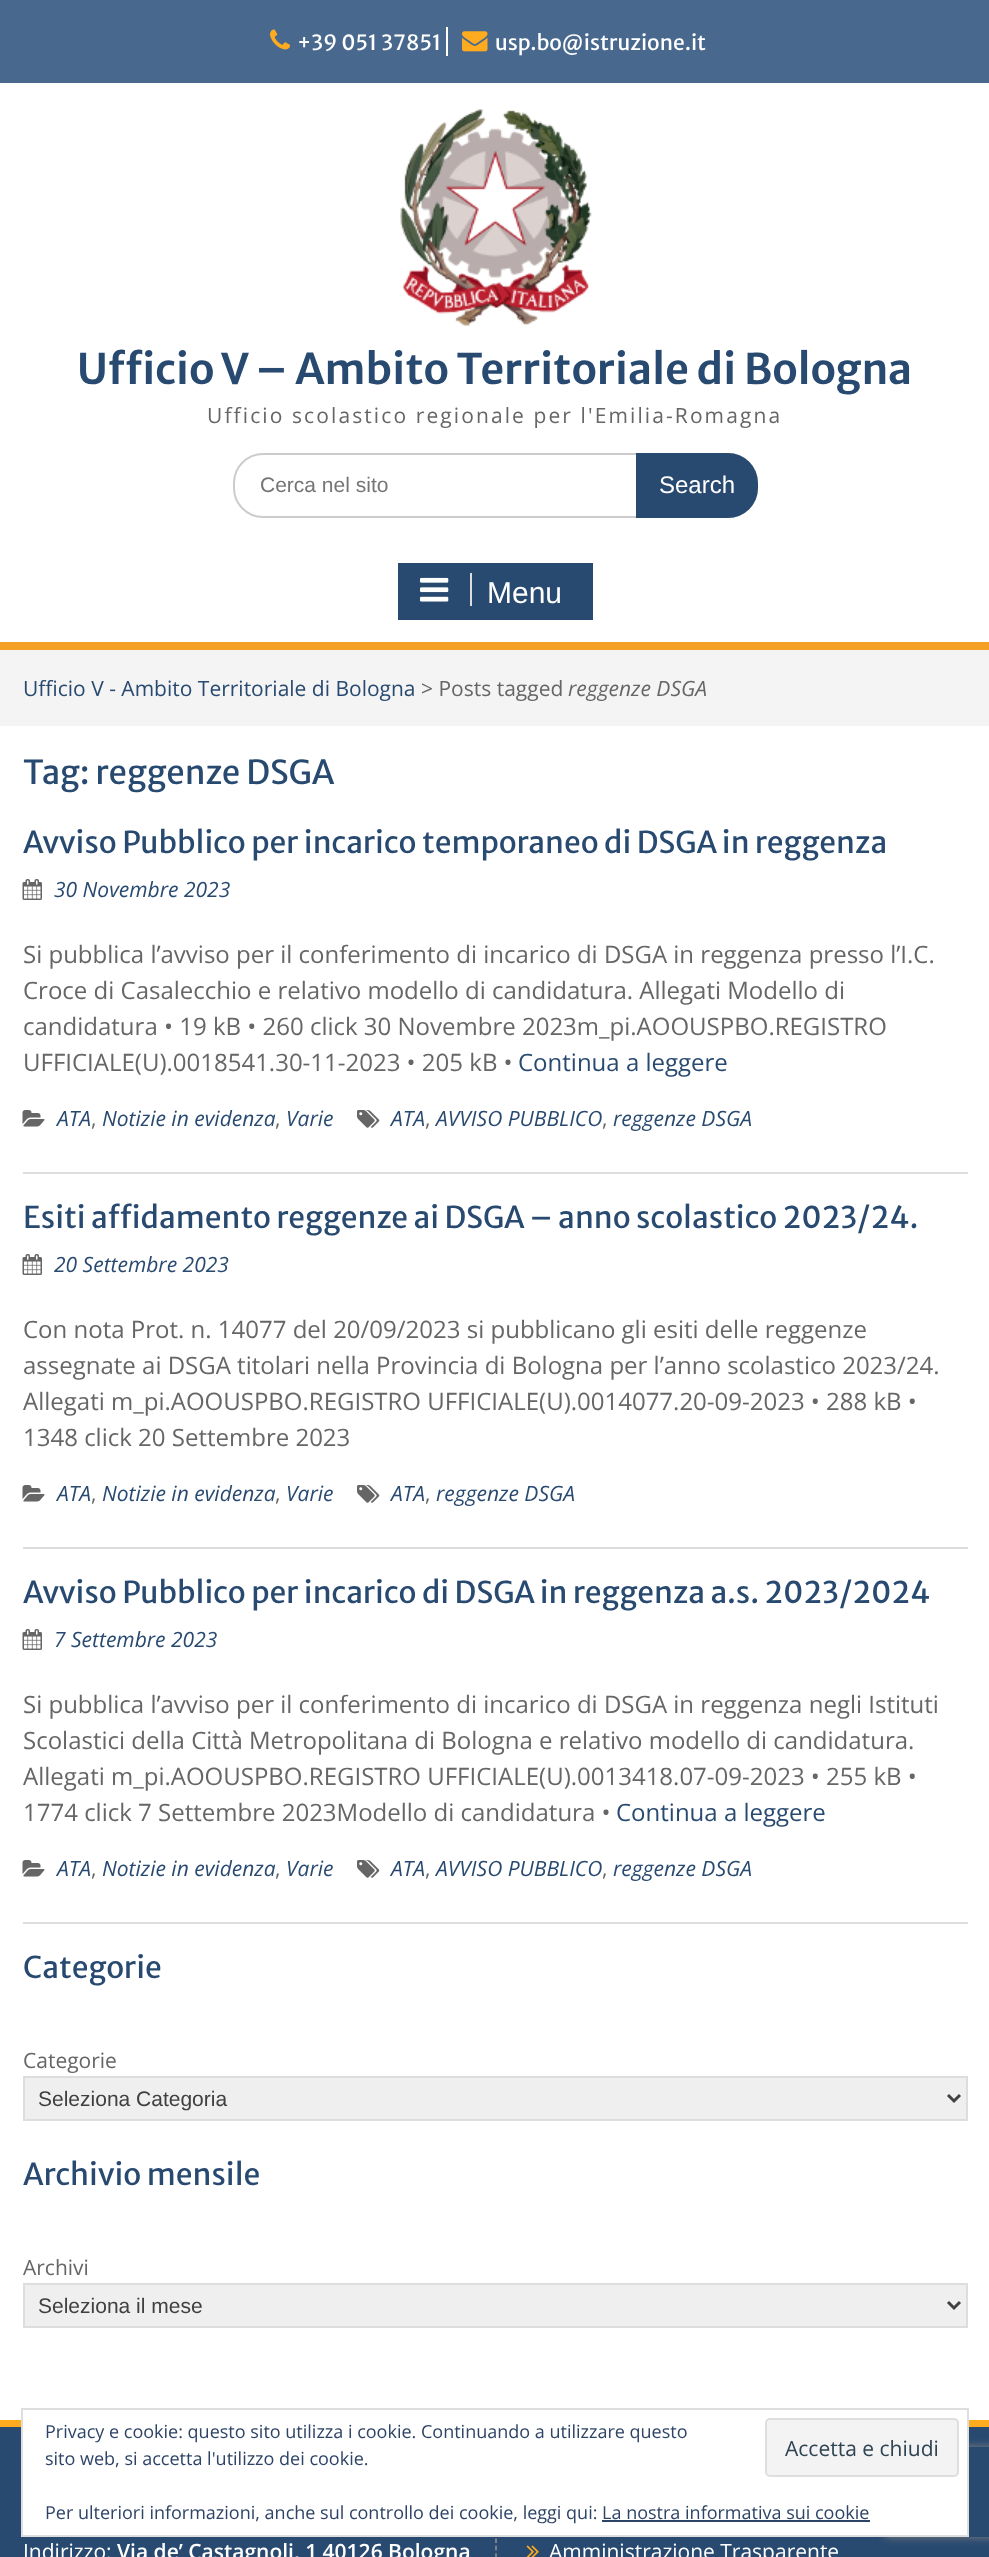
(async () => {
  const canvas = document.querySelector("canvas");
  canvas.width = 989;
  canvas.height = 2557;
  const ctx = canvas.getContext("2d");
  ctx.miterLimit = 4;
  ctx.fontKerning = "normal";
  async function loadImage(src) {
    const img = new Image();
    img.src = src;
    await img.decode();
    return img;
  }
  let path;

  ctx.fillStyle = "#ffffff";
  ctx.fillRect(0, 0, 989, 2557);
  ctx.fillStyle = "#49688e";
  ctx.fillRect(0, 0, 989, 83);
  ctx.drawImage(await loadImage("img/1.png"), 270, 29, 20, 21);
  ctx.fillStyle = "#ffffff";
  ctx.fillRect(446, 27, 2, 29);
  ctx.drawImage(await loadImage("img/2.png"), 462, 31, 26, 21);
  ctx.drawImage(await loadImage("img/3.png"), 400, 109, 192, 217);
  ctx.beginPath();
  ctx.roundRect(234, 454, 523, 63, 29);
  ctx.strokeStyle = "#cccccc";
  ctx.lineWidth = 2;
  ctx.stroke();
  ctx.fillStyle = "#294a70";
  ctx.beginPath();
  ctx.roundRect(636, 453, 122, 65, [0, 30, 30, 0]);
  ctx.fill();
  for (const [x, y, w, h, color] of [
    [0, 642, 989, 8, "#f4a024"],
    [398, 563, 195, 57, "#294a70"],
    [470, 573, 2, 33, "#dddddd"],
  ]) {
    ctx.fillStyle = color;
    ctx.fillRect(x, y, w, h);
  }
  ctx.drawImage(await loadImage("img/4.png"), 420, 577, 29, 25);
  ctx.fillStyle = "#f4f4f4";
  ctx.fillRect(0, 650, 989, 76);
  ctx.fillStyle = "#dddddd";
  ctx.fillRect(23, 1172, 945, 2);
  ctx.drawImage(await loadImage("img/5.png"), 22, 879, 20, 21);
  ctx.drawImage(await loadImage("img/6.png"), 22, 1110, 23, 17);
  ctx.drawImage(await loadImage("img/7.png"), 357, 1110, 23, 18);
  ctx.fillRect(23, 1547, 945, 2);
  ctx.drawImage(await loadImage("img/5.png"), 22, 1254, 20, 21);
  ctx.drawImage(await loadImage("img/6.png"), 22, 1485, 23, 17);
  ctx.drawImage(await loadImage("img/7.png"), 357, 1485, 23, 18);
  ctx.fillRect(23, 1922, 945, 2);
  ctx.drawImage(await loadImage("img/5.png"), 22, 1629, 20, 21);
  ctx.drawImage(await loadImage("img/6.png"), 22, 1860, 23, 17);
  ctx.drawImage(await loadImage("img/7.png"), 357, 1860, 23, 18);
  ctx.fillStyle = "#efefef";
  ctx.beginPath();
  ctx.rect(24, 2077, 943, 43);
  ctx.fill();
  ctx.strokeStyle = "#dddddd";
  ctx.stroke();
  path = new Path2D("M948 2095L954 2101L960 2095");
  ctx.strokeStyle = "#404040";
  ctx.lineWidth = 3;
  ctx.stroke(path);
  ctx.beginPath();
  ctx.rect(24, 2284, 943, 43);
  ctx.fill();
  ctx.strokeStyle = "#dddddd";
  ctx.lineWidth = 2;
  ctx.stroke();
  path = new Path2D("M948 2302L954 2308L960 2302");
  ctx.strokeStyle = "#404040";
  ctx.lineWidth = 3;
  ctx.stroke(path);
  ctx.fillStyle = "#294a70";
  ctx.fillRect(0, 2427, 989, 130);
  ctx.fillStyle = "#ffab1f";
  ctx.fillRect(0, 2420, 989, 7);
  path = new Path2D("M496 2472V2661");
  ctx.strokeStyle = "#939393";
  ctx.lineWidth = 1.5;
  ctx.setLineDash([4.5, 2.88]);
  ctx.stroke(path);
  ctx.drawImage(await loadImage("img/8.png"), 526, 2545, 13, 12);
  ctx.save();
  path = new Path2D("M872 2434H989V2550H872ZM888 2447H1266C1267.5 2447 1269 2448.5 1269 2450V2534C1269 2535.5 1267.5 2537 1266 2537H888C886.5 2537 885 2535.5 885 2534V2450C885 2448.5 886.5 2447 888 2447Z");
  ctx.clip(path, "evenodd");
  ctx.fillStyle = "#808080";
  ctx.filter = "blur(4px)";
  ctx.beginPath();
  ctx.roundRect(885, 2447, 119, 90, 3);
  ctx.fill();
  ctx.filter = "none";
  ctx.restore();
  ctx.fillStyle = "#ffffff";
  ctx.fillRect(23, 2420, 944, 115);
  ctx.strokeStyle = "#dedede";
  ctx.lineWidth = 2;
  ctx.setLineDash([]);
  ctx.strokeRect(22, 2409, 946, 127);
  ctx.fillStyle = "#f3f3f3";
  ctx.beginPath();
  ctx.roundRect(766, 2419, 192, 57, 4);
  ctx.fill();
  ctx.stroke();
  ctx.fillStyle = "#2e4467";
  ctx.fillRect(602, 2520, 268, 2);
  ctx.font = "21px Merriweather Sans";
  ctx.fillStyle = "#ffffff";
  ctx.fillText("+39 051 37851", 297, 50);
  ctx.fillText("usp.bo@istruzione.it", 495, 50);
  ctx.font = "600 42px Merriweather Sans";
  ctx.fillStyle = "#294a70";
  ctx.fillText("Ufficio V – Ambito Territoriale di Bologna", 77, 384);
  ctx.letterSpacing = "2.1px";
  ctx.font = "21px Open Sans";
  ctx.fillStyle = "#666666";
  ctx.fillText("Ufficio scolastico regionale per l'Emilia-Romagna", 207, 423);
  ctx.letterSpacing = "0px";
  ctx.font = "21px Liberation Sans";
  ctx.fillStyle = "#757575";
  ctx.fillText("Cerca nel sito", 260, 492);
  ctx.font = "24px Liberation Sans";
  ctx.fillStyle = "#ffffff";
  ctx.fillText("Search", 659, 493);
  ctx.font = "30px Liberation Sans";
  ctx.fillText("Menu", 487, 603);
  ctx.font = "21px Open Sans";
  ctx.fillStyle = "#294a70";
  ctx.fillText("Ufficio V - Ambito Territoriale di Bologna", 23, 696);
  ctx.fillStyle = "#666666";
  ctx.fillText("> Posts tagged", 421, 696);
  ctx.font = "italic 21px Open Sans";
  ctx.fillText("reggenze DSGA", 568, 696);
  ctx.font = "33px Merriweather Sans";
  ctx.fillStyle = "#294a70";
  ctx.fillText("Tag: reggenze DSGA", 23, 784);
  ctx.font = "30px Merriweather Sans";
  ctx.fillText("Avviso Pubblico per incarico temporaneo di DSGA in reggenza", 23, 853);
  ctx.font = "italic 21px Open Sans";
  ctx.fillText("30 Novembre 2023", 54, 897);
  ctx.font = "24px Open Sans";
  ctx.fillStyle = "#666666";
  for (const [text, x, y] of [
    ["Si pubblica l’avviso per il conferimento di incarico di DSGA in reggenza presso l’I.C.", 23, 963],
    ["Croce di Casalecchio e relativo modello di candidatura. Allegati Modello di", 23, 999],
    ["candidatura • 19 kB • 260 click 30 Novembre 2023m_pi.AOOUSPBO.REGISTRO", 23, 1035],
    ["UFFICIALE(U).0018541.30-11-2023 • 205 kB •", 23, 1071],
  ]) {
    ctx.fillText(text, x, y);
  }
  ctx.fillStyle = "#294a70";
  ctx.fillText("Continua a leggere", 518, 1071);
  ctx.font = "italic 21px Open Sans";
  ctx.fillText("ATA", 57, 1126);
  ctx.font = "21px Open Sans";
  ctx.fillStyle = "#666666";
  ctx.fillText(",", 91, 1126);
  ctx.font = "italic 21px Open Sans";
  ctx.fillStyle = "#294a70";
  ctx.fillText("Notizie in evidenza", 102, 1126);
  ctx.font = "21px Open Sans";
  ctx.fillStyle = "#666666";
  ctx.fillText(",", 275, 1126);
  ctx.font = "italic 21px Open Sans";
  ctx.fillStyle = "#294a70";
  ctx.fillText("Varie", 286, 1126);
  ctx.fillText("ATA", 391, 1126);
  ctx.font = "21px Open Sans";
  ctx.fillStyle = "#666666";
  ctx.fillText(",", 425, 1126);
  ctx.font = "italic 21px Open Sans";
  ctx.fillStyle = "#294a70";
  ctx.fillText("AVVISO PUBBLICO", 436, 1126);
  ctx.font = "21px Open Sans";
  ctx.fillStyle = "#666666";
  ctx.fillText(",", 602, 1126);
  ctx.font = "italic 21px Open Sans";
  ctx.fillStyle = "#294a70";
  ctx.fillText("reggenze DSGA", 613, 1126);
  ctx.font = "30px Merriweather Sans";
  ctx.fillText("Esiti affidamento reggenze ai DSGA – anno scolastico 2023/24.", 23, 1228);
  ctx.font = "italic 21px Open Sans";
  ctx.fillText("20 Settembre 2023", 54, 1272);
  ctx.font = "24px Open Sans";
  ctx.fillStyle = "#666666";
  for (const [text, x, y] of [
    ["Con nota Prot. n. 14077 del 20/09/2023 si pubblicano gli esiti delle reggenze", 23, 1338],
    ["assegnate ai DSGA titolari nella Provincia di Bologna per l’anno scolastico 2023/24.", 23, 1374],
    ["Allegati m_pi.AOOUSPBO.REGISTRO UFFICIALE(U).0014077.20-09-2023 • 288 kB •", 23, 1410],
    ["1348 click 20 Settembre 2023", 23, 1446],
  ]) {
    ctx.fillText(text, x, y);
  }
  ctx.font = "italic 21px Open Sans";
  ctx.fillStyle = "#294a70";
  ctx.fillText("ATA", 57, 1501);
  ctx.font = "21px Open Sans";
  ctx.fillStyle = "#666666";
  ctx.fillText(",", 91, 1501);
  ctx.font = "italic 21px Open Sans";
  ctx.fillStyle = "#294a70";
  ctx.fillText("Notizie in evidenza", 102, 1501);
  ctx.font = "21px Open Sans";
  ctx.fillStyle = "#666666";
  ctx.fillText(",", 275, 1501);
  ctx.font = "italic 21px Open Sans";
  ctx.fillStyle = "#294a70";
  ctx.fillText("Varie", 286, 1501);
  ctx.fillText("ATA", 391, 1501);
  ctx.font = "21px Open Sans";
  ctx.fillStyle = "#666666";
  ctx.fillText(",", 425, 1501);
  ctx.font = "italic 21px Open Sans";
  ctx.fillStyle = "#294a70";
  ctx.fillText("reggenze DSGA", 436, 1501);
  ctx.font = "30px Merriweather Sans";
  ctx.fillText("Avviso Pubblico per incarico di DSGA in reggenza a.s. 2023/2024", 23, 1603);
  ctx.font = "italic 21px Open Sans";
  ctx.fillText("7 Settembre 2023", 54, 1647);
  ctx.font = "24px Open Sans";
  ctx.fillStyle = "#666666";
  for (const [text, x, y] of [
    ["Si pubblica l’avviso per il conferimento di incarico di DSGA in reggenza negli Istituti", 23, 1713],
    ["Scolastici della Città Metropolitana di Bologna e relativo modello di candidatura.", 23, 1749],
    ["Allegati m_pi.AOOUSPBO.REGISTRO UFFICIALE(U).0013418.07-09-2023 • 255 kB •", 23, 1785],
    ["1774 click 7 Settembre 2023Modello di candidatura •", 23, 1821],
  ]) {
    ctx.fillText(text, x, y);
  }
  ctx.fillStyle = "#294a70";
  ctx.fillText("Continua a leggere", 616, 1821);
  ctx.font = "italic 21px Open Sans";
  ctx.fillText("ATA", 57, 1876);
  ctx.font = "21px Open Sans";
  ctx.fillStyle = "#666666";
  ctx.fillText(",", 91, 1876);
  ctx.font = "italic 21px Open Sans";
  ctx.fillStyle = "#294a70";
  ctx.fillText("Notizie in evidenza", 102, 1876);
  ctx.font = "21px Open Sans";
  ctx.fillStyle = "#666666";
  ctx.fillText(",", 275, 1876);
  ctx.font = "italic 21px Open Sans";
  ctx.fillStyle = "#294a70";
  ctx.fillText("Varie", 286, 1876);
  ctx.fillText("ATA", 391, 1876);
  ctx.font = "21px Open Sans";
  ctx.fillStyle = "#666666";
  ctx.fillText(",", 425, 1876);
  ctx.font = "italic 21px Open Sans";
  ctx.fillStyle = "#294a70";
  ctx.fillText("AVVISO PUBBLICO", 436, 1876);
  ctx.font = "21px Open Sans";
  ctx.fillStyle = "#666666";
  ctx.fillText(",", 602, 1876);
  ctx.font = "italic 21px Open Sans";
  ctx.fillStyle = "#294a70";
  ctx.fillText("reggenze DSGA", 613, 1876);
  ctx.font = "30px Merriweather Sans";
  ctx.fillText("Categorie", 23, 1978);
  ctx.font = "21px Open Sans";
  ctx.fillStyle = "#666666";
  ctx.fillText("Categorie", 23, 2068);
  ctx.font = "21px Liberation Sans";
  ctx.fillStyle = "#404040";
  ctx.fillText("Seleziona Categoria", 38, 2106);
  ctx.font = "30px Merriweather Sans";
  ctx.fillStyle = "#294a70";
  ctx.fillText("Archivio mensile", 23, 2185);
  ctx.font = "21px Open Sans";
  ctx.fillStyle = "#666666";
  ctx.fillText("Archivi", 23, 2275);
  ctx.font = "21px Liberation Sans";
  ctx.fillStyle = "#404040";
  ctx.fillText("Seleziona il mese", 38, 2313);
  ctx.font = "21px Open Sans";
  ctx.fillStyle = "#ffffff";
  ctx.fillText("Indirizzo:", 23, 2559);
  ctx.font = "600 21px Open Sans";
  ctx.fillText("Via de’ Castagnoli, 1 40126 Bologna", 117, 2559);
  ctx.font = "21px Open Sans";
  ctx.fillText("Amministrazione Trasparente", 549, 2559);
  ctx.font = "18px Open Sans";
  ctx.fillStyle = "#2e4467";
  ctx.fillText("Privacy e cookie: questo sito utilizza i cookie. Continuando a utilizzare questo", 45, 2438);
  ctx.font = "21px Open Sans";
  ctx.fillStyle = "#2e4453";
  ctx.fillText("Accetta e chiudi", 785, 2456);
  ctx.font = "18px Open Sans";
  ctx.fillStyle = "#2e4467";
  ctx.fillText("sito web, si accetta l'utilizzo dei cookie.", 45, 2465);
  ctx.fillText("Per ulteriori informazioni, anche sul controllo dei cookie, leggi qui: La nostra informativa sui cookie", 45, 2519);
})();
